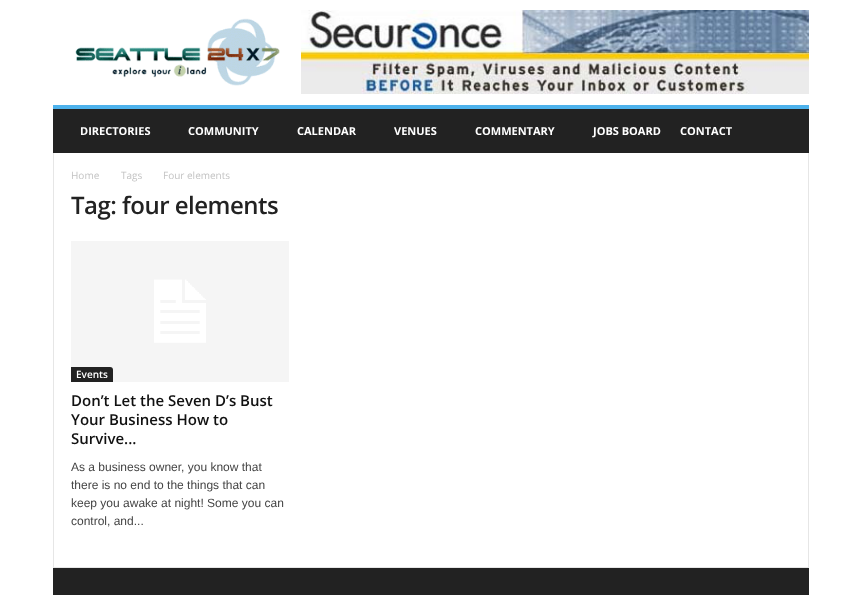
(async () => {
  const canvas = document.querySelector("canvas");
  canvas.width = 862;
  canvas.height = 595;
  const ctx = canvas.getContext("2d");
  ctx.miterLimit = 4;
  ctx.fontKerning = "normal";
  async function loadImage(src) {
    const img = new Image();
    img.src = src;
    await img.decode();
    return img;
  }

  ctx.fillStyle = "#ffffff";
  ctx.fillRect(0, 0, 862, 595);
  ctx.drawImage(await loadImage("img/1.png"), 75, 18, 205, 68);
  ctx.drawImage(await loadImage("img/2.png"), 301, 10, 508, 84);
  for (const [x, y, w, h, color] of [
    [53, 109, 756, 44, "#222222"],
    [53, 105, 756, 4, "#4db2ec"],
    [53, 567, 756, 1, "#e6e6e6"],
    [53, 153, 1, 414, "#e6e6e6"],
  ]) {
    ctx.fillStyle = color;
    ctx.fillRect(x, y, w, h);
  }
  ctx.drawImage(await loadImage("img/3.png"), 71, 241, 218, 141);
  ctx.fillStyle = "#222222";
  ctx.beginPath();
  ctx.roundRect(71, 367, 42, 15, [0, 3, 0, 0]);
  ctx.fill();
  ctx.fillStyle = "#e6e6e6";
  ctx.fillRect(808, 153, 1, 414);
  ctx.fillStyle = "#222222";
  ctx.fillRect(53, 568, 756, 27);
  ctx.font = "bold 11px Open Sans";
  ctx.fillStyle = "#ffffff";
  for (const [text, x, y] of [
    ["DIRECTORIES", 80, 135],
    ["COMMUNITY", 188, 135],
    ["CALENDAR", 297, 135],
    ["VENUES", 394, 135],
    ["COMMENTARY", 475, 135],
    ["JOBS BOARD", 593, 135],
    ["CONTACT", 680, 135],
  ]) {
    ctx.fillText(text, x, y);
  }
  ctx.font = "10px Open Sans";
  ctx.fillStyle = "#c3c3c3";
  for (const [text, x, y] of [
    ["Home", 71, 179],
    ["Tags", 121, 179],
    ["Four elements", 163, 179],
  ]) {
    ctx.fillText(text, x, y);
  }
  ctx.letterSpacing = "-0.5px";
  ctx.font = "600 24px Open Sans";
  ctx.fillStyle = "#222222";
  ctx.fillText("Tag: four elements", 71, 214);
  ctx.letterSpacing = "0px";
  ctx.font = "600 10px Open Sans";
  ctx.fillStyle = "#ffffff";
  ctx.fillText("Events", 76, 378);
  ctx.font = "600 15px Open Sans";
  ctx.fillStyle = "#111111";
  for (const [text, x, y] of [
    ["Don’t Let the Seven D’s Bust", 71, 406],
    ["Your Business How to", 71, 425],
    ["Survive...", 71, 444],
  ]) {
    ctx.fillText(text, x, y);
  }
  ctx.font = "12px Liberation Sans";
  ctx.fillStyle = "#444444";
  for (const [text, x, y] of [
    ["As a business owner, you know that", 71, 471],
    ["there is no end to the things that can", 71, 489],
    ["keep you awake at night! Some you can", 71, 507],
    ["control, and...", 71, 525],
  ]) {
    ctx.fillText(text, x, y);
  }
})();
